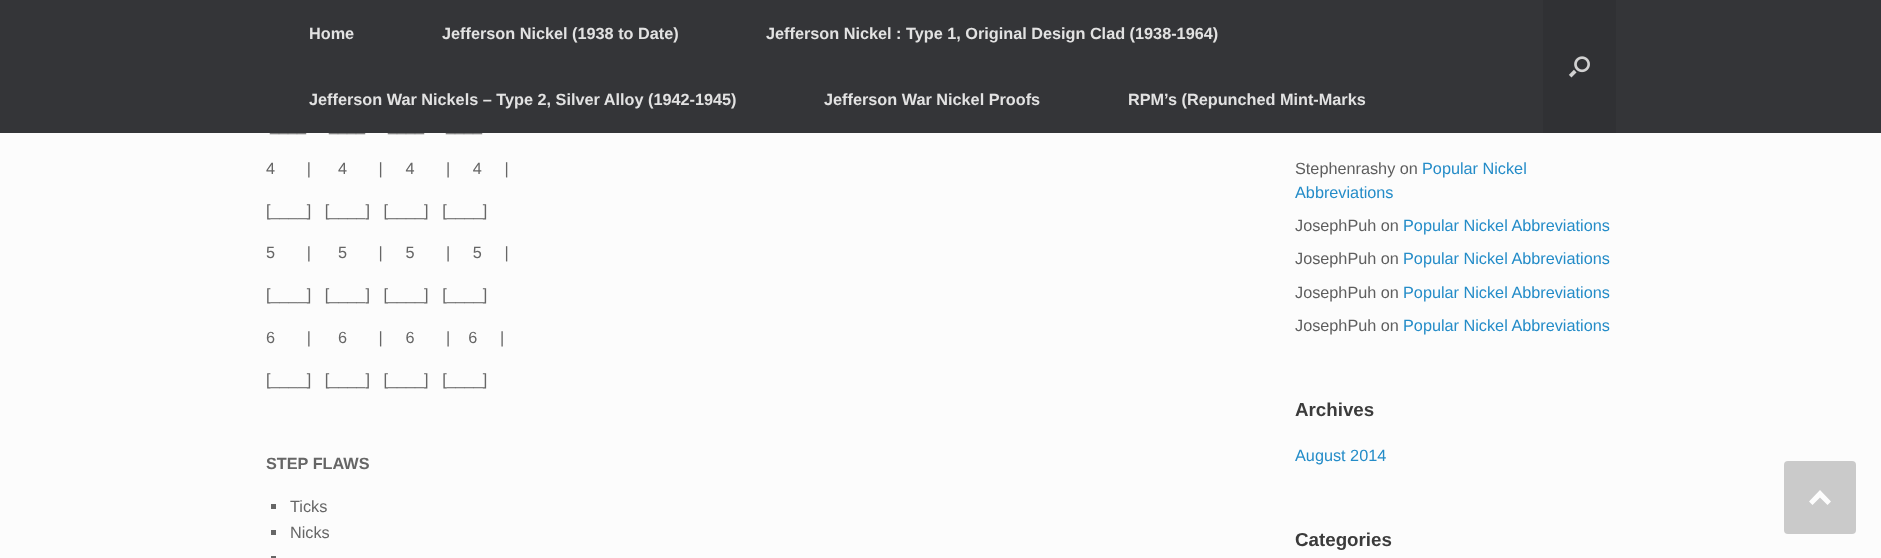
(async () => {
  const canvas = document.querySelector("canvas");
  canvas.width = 1881;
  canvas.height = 558;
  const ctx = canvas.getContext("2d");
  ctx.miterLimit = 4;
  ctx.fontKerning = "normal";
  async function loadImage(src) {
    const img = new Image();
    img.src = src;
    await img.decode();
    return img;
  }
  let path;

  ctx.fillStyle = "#fcfcfc";
  ctx.fillRect(0, 0, 1881, 558);
  ctx.fillStyle = "#343538";
  ctx.fillRect(0, 0, 1881, 133);
  ctx.fillStyle = "#303134";
  ctx.fillRect(1543, 0, 73, 133);
  ctx.drawImage(await loadImage("img/1.png"), 1568, 56, 22, 22);
  for (const [x, y, w, h, color] of [
    [271, 504, 5, 5, "#666666"],
    [271, 530, 5, 5, "#666666"],
    [271, 556, 5, 2, "#666666"],
  ]) {
    ctx.fillStyle = color;
    ctx.fillRect(x, y, w, h);
  }
  ctx.fillStyle = "#cacaca";
  ctx.beginPath();
  ctx.roundRect(1784, 461, 72, 73, 4);
  ctx.fill();
  ctx.fillStyle = "#fdfdfd";
  path = new Path2D("M1831 501.5L1820 490L1809 501.5L1812.5 505L1820 497.5L1827.5 505Z");
  ctx.fill(path);
  ctx.font = "bold 16.25px Liberation Sans";
  ctx.fillStyle = "#e2e2e2";
  for (const [text, x, y] of [
    ["Home", 309, 39],
    ["Jefferson Nickel (1938 to Date)", 442, 39],
    ["Jefferson Nickel : Type 1, Original Design Clad (1938-1964)", 766, 39],
    ["Jefferson War Nickels – Type 2, Silver Alloy (1942-1945)", 309, 105],
    ["Jefferson War Nickel Proofs", 824, 105],
    ["RPM’s (Repunched Mint-Marks", 1128, 105],
  ]) {
    ctx.fillText(text, x, y);
  }
  ctx.font = "16.25px Liberation Sans";
  ctx.fillStyle = "#666666";
  for (const [text, x, y] of [
    ["____", 270, 131],
    ["____", 329, 131],
    ["____", 388, 131],
    ["____", 446, 131],
    ["4       |      4       |     4       |     4     |", 266, 174],
    ["[____]   [____]   [____]   [____]", 266, 216],
    ["5       |      5       |     5       |     5     |", 266, 258],
    ["[____]   [____]   [____]   [____]", 266, 300],
    ["6       |      6       |     6       |    6     |", 266, 343],
    ["[____]   [____]   [____]   [____]", 266, 385],
  ]) {
    ctx.fillText(text, x, y);
  }
  ctx.font = "bold 16.25px Liberation Sans";
  ctx.fillText("STEP FLAWS", 266, 469);
  ctx.font = "16.25px Liberation Sans";
  ctx.fillText("Ticks", 290, 512);
  ctx.fillText("Nicks", 290, 538);
  ctx.fillStyle = "#5e5e5e";
  ctx.fillText("Stephenrashy on", 1295, 174);
  ctx.fillStyle = "#248cc8";
  ctx.fillText("Popular Nickel", 1422, 174);
  ctx.fillText("Abbreviations", 1295, 198);
  ctx.fillStyle = "#5e5e5e";
  ctx.fillText("JosephPuh on", 1295, 231);
  ctx.fillStyle = "#248cc8";
  ctx.fillText("Popular Nickel Abbreviations", 1403, 231);
  ctx.fillStyle = "#5e5e5e";
  ctx.fillText("JosephPuh on", 1295, 264);
  ctx.fillStyle = "#248cc8";
  ctx.fillText("Popular Nickel Abbreviations", 1403, 264);
  ctx.fillStyle = "#5e5e5e";
  ctx.fillText("JosephPuh on", 1295, 298);
  ctx.fillStyle = "#248cc8";
  ctx.fillText("Popular Nickel Abbreviations", 1403, 298);
  ctx.fillStyle = "#5e5e5e";
  ctx.fillText("JosephPuh on", 1295, 331);
  ctx.fillStyle = "#248cc8";
  ctx.fillText("Popular Nickel Abbreviations", 1403, 331);
  ctx.font = "bold 18.75px Liberation Sans";
  ctx.fillStyle = "#3b3b3b";
  ctx.fillText("Archives", 1295, 416);
  ctx.font = "16.25px Liberation Sans";
  ctx.fillStyle = "#248cc8";
  ctx.fillText("August 2014", 1295, 461);
  ctx.font = "bold 18.75px Liberation Sans";
  ctx.fillStyle = "#3b3b3b";
  ctx.fillText("Categories", 1295, 546);
})();
